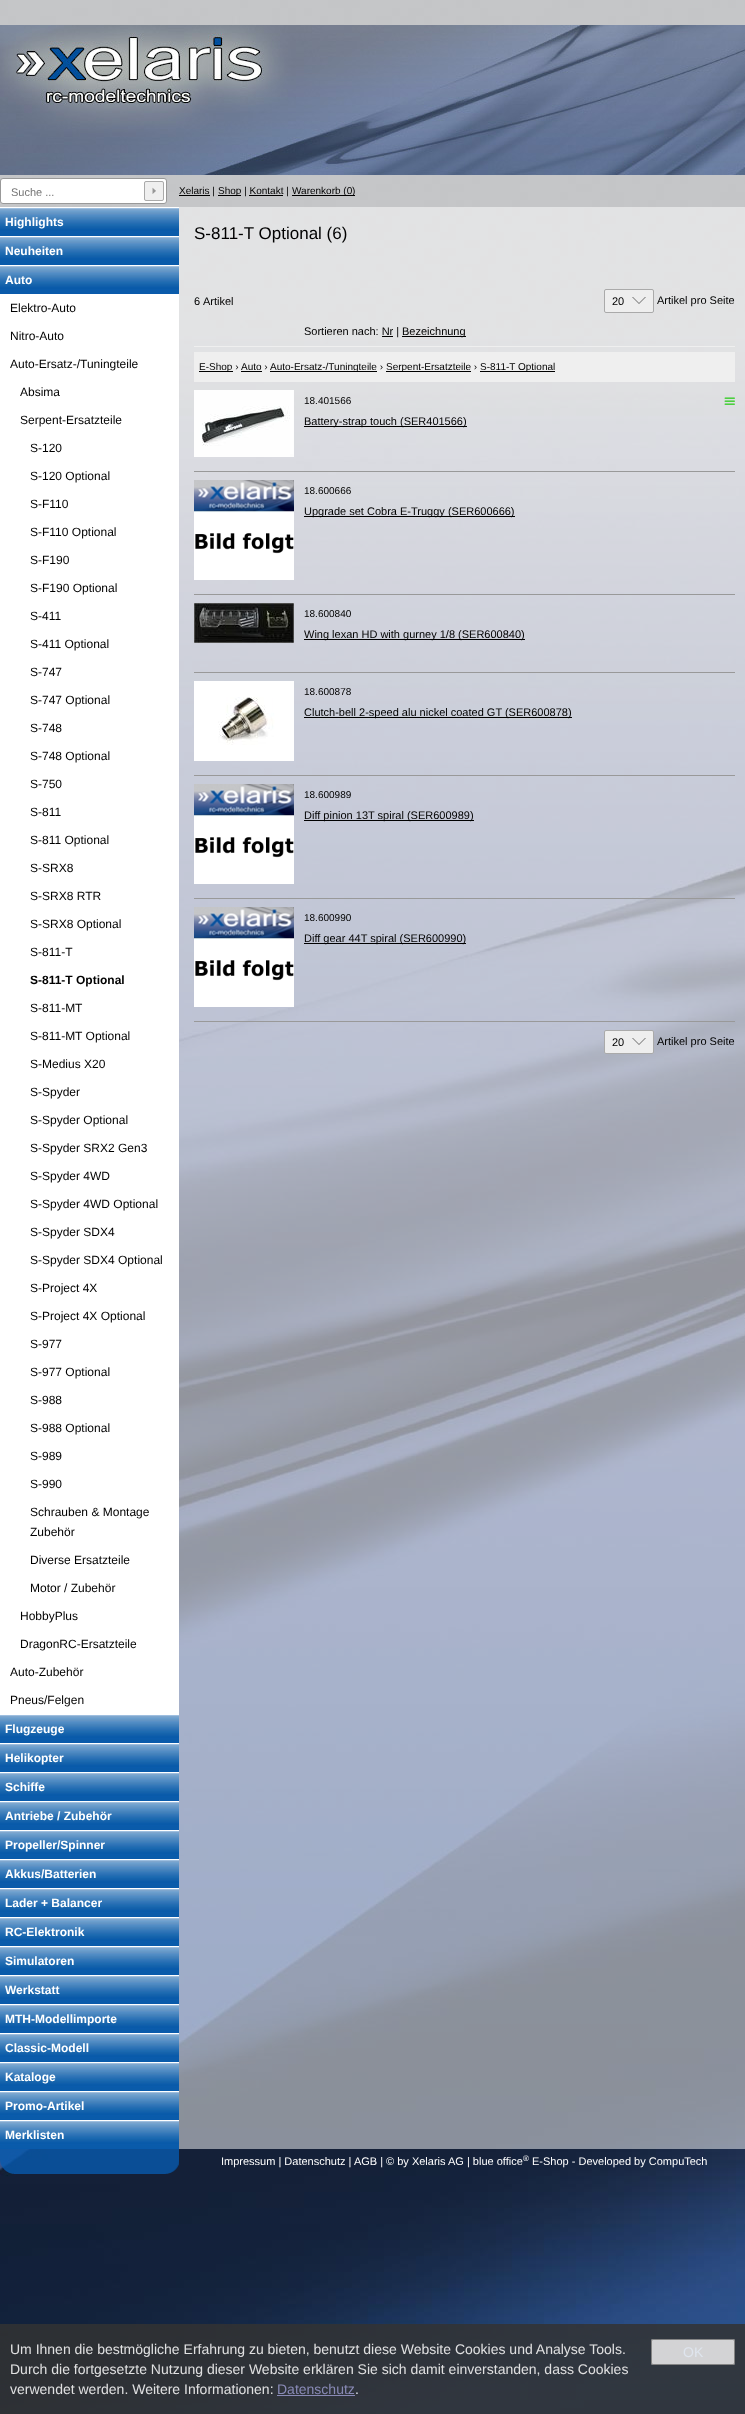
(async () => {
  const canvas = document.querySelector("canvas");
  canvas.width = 745;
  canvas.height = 2414;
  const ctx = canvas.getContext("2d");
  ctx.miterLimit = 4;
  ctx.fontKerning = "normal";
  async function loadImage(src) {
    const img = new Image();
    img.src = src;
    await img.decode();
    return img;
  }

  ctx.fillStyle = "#ffffff";
  ctx.fillRect(0, 0, 745, 2414);
  ctx.drawImage(await loadImage("img/1.png"), 0, 0, 745, 2414);
  ctx.drawImage(await loadImage("img/2.png"), 0, 25, 745, 150);
  ctx.beginPath();
  ctx.roundRect(0.5, 178.5, 166, 25, 2.5);
  ctx.fill();
  ctx.strokeStyle = "#999999";
  ctx.stroke();
  ctx.fillStyle = "#efefef";
  ctx.beginPath();
  ctx.roundRect(144, 181, 20, 20, 2);
  ctx.fill();
  ctx.drawImage(await loadImage("img/3.png"), 152, 187, 4, 7);
  ctx.beginPath();
  ctx.roundRect(144.5, 181.5, 19, 19, 1.5);
  ctx.strokeStyle = "#aaaaaa";
  ctx.stroke();
  for (const [x, y, w, h, color] of [
    [179, 195, 31, 1, "#000000"],
    [218, 195, 23, 1, "#000000"],
    [292, 195, 54, 1, "#000000"],
    [346, 195, 9, 1, "#000000"],
    [249, 195, 34, 1, "#000000"],
  ]) {
    ctx.fillStyle = color;
    ctx.fillRect(x, y, w, h);
  }
  ctx.drawImage(await loadImage("img/4.png"), 0, 208, 179, 28);
  ctx.fillStyle = "#ffffff";
  ctx.fillRect(0, 207, 179, 1);
  ctx.drawImage(await loadImage("img/4.png"), 0, 237, 179, 28);
  ctx.fillRect(0, 236, 179, 1);
  ctx.drawImage(await loadImage("img/4.png"), 0, 266, 179, 28);
  ctx.fillRect(0, 265, 179, 1);
  ctx.fillRect(0, 294, 179, 1421);
  ctx.drawImage(await loadImage("img/4.png"), 0, 1715, 179, 28);
  ctx.drawImage(await loadImage("img/4.png"), 0, 1744, 179, 28);
  ctx.fillRect(0, 1743, 179, 1);
  ctx.drawImage(await loadImage("img/4.png"), 0, 1773, 179, 28);
  ctx.fillRect(0, 1772, 179, 1);
  ctx.drawImage(await loadImage("img/4.png"), 0, 1802, 179, 28);
  ctx.fillRect(0, 1801, 179, 1);
  ctx.drawImage(await loadImage("img/4.png"), 0, 1831, 179, 28);
  ctx.fillRect(0, 1830, 179, 1);
  ctx.drawImage(await loadImage("img/4.png"), 0, 1860, 179, 28);
  ctx.fillRect(0, 1859, 179, 1);
  ctx.drawImage(await loadImage("img/4.png"), 0, 1889, 179, 28);
  ctx.fillRect(0, 1888, 179, 1);
  ctx.drawImage(await loadImage("img/4.png"), 0, 1918, 179, 28);
  ctx.fillRect(0, 1917, 179, 1);
  ctx.drawImage(await loadImage("img/4.png"), 0, 1947, 179, 28);
  ctx.fillRect(0, 1946, 179, 1);
  ctx.drawImage(await loadImage("img/4.png"), 0, 1976, 179, 28);
  ctx.fillRect(0, 1975, 179, 1);
  ctx.drawImage(await loadImage("img/4.png"), 0, 2005, 179, 28);
  ctx.fillRect(0, 2004, 179, 1);
  ctx.drawImage(await loadImage("img/4.png"), 0, 2034, 179, 28);
  ctx.fillRect(0, 2033, 179, 1);
  ctx.drawImage(await loadImage("img/4.png"), 0, 2063, 179, 28);
  ctx.fillRect(0, 2062, 179, 1);
  ctx.drawImage(await loadImage("img/4.png"), 0, 2092, 179, 28);
  ctx.fillRect(0, 2091, 179, 1);
  ctx.drawImage(await loadImage("img/4.png"), 0, 2121, 179, 28);
  ctx.fillRect(0, 2120, 179, 1);
  ctx.fillStyle = "rgba(255, 255, 255, 0.5)";
  ctx.fillRect(179, 207, 566, 1942);
  ctx.fillStyle = "#eeeeee";
  ctx.beginPath();
  ctx.roundRect(604.5, 289.5, 49, 23, 1.5);
  ctx.fill();
  ctx.stroke();
  ctx.drawImage(await loadImage("img/5.png"), 632, 297, 14, 7);
  for (const [x, y, w, h, color] of [
    [194, 346, 541, 1, "#efefef"],
    [402, 336, 64, 1, "#000000"],
    [382, 336, 11, 1, "#000000"],
    [194, 352, 541, 30, "#efefef"],
    [199, 371, 34, 1, "#000000"],
    [241, 371, 21, 1, "#000000"],
    [270, 371, 107, 1, "#000000"],
    [386, 371, 85, 1, "#000000"],
    [480, 371, 75, 1, "#000000"],
  ]) {
    ctx.fillStyle = color;
    ctx.fillRect(x, y, w, h);
  }
  ctx.drawImage(await loadImage("img/6.png"), 194, 390, 100, 67);
  ctx.fillStyle = "#999999";
  ctx.fillRect(194, 471, 541, 1);
  ctx.drawImage(await loadImage("img/7.png"), 724, 397, 11, 8);
  ctx.fillStyle = "#000000";
  ctx.fillRect(304, 426, 163, 1);
  ctx.drawImage(await loadImage("img/8.png"), 194, 480, 100, 100);
  ctx.fillStyle = "#999999";
  ctx.fillRect(194, 594, 541, 1);
  ctx.fillStyle = "#000000";
  ctx.fillRect(304, 516, 211, 1);
  ctx.drawImage(await loadImage("img/9.png"), 194, 603, 100, 40);
  ctx.fillStyle = "#999999";
  ctx.fillRect(194, 672, 541, 1);
  ctx.fillStyle = "#000000";
  ctx.fillRect(304, 639, 221, 1);
  ctx.drawImage(await loadImage("img/10.png"), 194, 681, 100, 80);
  ctx.fillStyle = "#999999";
  ctx.fillRect(194, 775, 541, 1);
  ctx.fillStyle = "#000000";
  ctx.fillRect(304, 717, 268, 1);
  ctx.drawImage(await loadImage("img/8.png"), 194, 784, 100, 100);
  ctx.fillStyle = "#999999";
  ctx.fillRect(194, 898, 541, 1);
  ctx.fillStyle = "#000000";
  ctx.fillRect(304, 820, 170, 1);
  ctx.drawImage(await loadImage("img/8.png"), 194, 907, 100, 100);
  ctx.fillStyle = "#999999";
  ctx.fillRect(194, 1021, 541, 1);
  ctx.fillStyle = "#000000";
  ctx.fillRect(304, 943, 162, 1);
  ctx.fillStyle = "#eeeeee";
  ctx.beginPath();
  ctx.roundRect(604.5, 1030.5, 49, 23, 1.5);
  ctx.fill();
  ctx.stroke();
  ctx.drawImage(await loadImage("img/5.png"), 632, 1038, 14, 7);
  ctx.drawImage(await loadImage("img/11.png"), 0, 2149, 179, 25);
  ctx.fillStyle = "rgba(51, 51, 51, 0.85)";
  ctx.fillRect(0, 2324, 745, 90);
  ctx.fillStyle = "#d3d3d5";
  ctx.beginPath();
  ctx.roundRect(651, 2339, 84, 26, 2);
  ctx.fill();
  ctx.beginPath();
  ctx.roundRect(651.5, 2339.5, 83, 25, 1.5);
  ctx.strokeStyle = "rgba(118, 118, 118, 0.85)";
  ctx.stroke();
  ctx.fillStyle = "#898ab6";
  ctx.fillRect(277, 2395, 78, 1);
  ctx.font = "11px Liberation Sans";
  ctx.fillStyle = "#757575";
  ctx.fillText("Suche ...", 11, 196);
  ctx.font = "10px Liberation Sans";
  ctx.fillStyle = "#000000";
  for (const [text, x, y] of [
    ["Xelaris |", 179, 194],
    ["Shop | Kontakt |", 218, 194],
    ["Warenkorb (0", 292, 194],
    [")", 352, 194],
  ]) {
    ctx.fillText(text, x, y);
  }
  ctx.font = "bold 12px Liberation Sans";
  ctx.fillStyle = "#ffffff";
  for (const [text, x, y] of [
    ["Highlights", 5, 226],
    ["Neuheiten", 5, 255],
    ["Auto", 5, 284],
  ]) {
    ctx.fillText(text, x, y);
  }
  ctx.font = "12px Liberation Sans";
  ctx.fillStyle = "#000000";
  for (const [text, x, y] of [
    ["Elektro-Auto", 10, 312],
    ["Nitro-Auto", 10, 340],
    ["Auto-Ersatz-/Tuningteile", 10, 368],
    ["Absima", 20, 396],
    ["Serpent-Ersatzteile", 20, 424],
    ["S-120", 30, 452],
    ["S-120 Optional", 30, 480],
    ["S-F110", 30, 508],
    ["S-F110 Optional", 30, 536],
    ["S-F190", 30, 564],
    ["S-F190 Optional", 30, 592],
    ["S-411", 30, 620],
    ["S-411 Optional", 30, 648],
    ["S-747", 30, 676],
    ["S-747 Optional", 30, 704],
    ["S-748", 30, 732],
    ["S-748 Optional", 30, 760],
    ["S-750", 30, 788],
    ["S-811", 30, 816],
    ["S-811 Optional", 30, 844],
    ["S-SRX8", 30, 872],
    ["S-SRX8 RTR", 30, 900],
    ["S-SRX8 Optional", 30, 928],
    ["S-811-T", 30, 956],
  ]) {
    ctx.fillText(text, x, y);
  }
  ctx.font = "bold 12px Liberation Sans";
  ctx.fillText("S-811-T Optional", 30, 984);
  ctx.font = "12px Liberation Sans";
  for (const [text, x, y] of [
    ["S-811-MT", 30, 1012],
    ["S-811-MT Optional", 30, 1040],
    ["S-Medius X20", 30, 1068],
    ["S-Spyder", 30, 1096],
    ["S-Spyder Optional", 30, 1124],
    ["S-Spyder SRX2 Gen3", 30, 1152],
    ["S-Spyder 4WD", 30, 1180],
    ["S-Spyder 4WD Optional", 30, 1208],
    ["S-Spyder SDX4", 30, 1236],
    ["S-Spyder SDX4 Optional", 30, 1264],
    ["S-Project 4X", 30, 1292],
    ["S-Project 4X Optional", 30, 1320],
    ["S-977", 30, 1348],
    ["S-977 Optional", 30, 1376],
    ["S-988", 30, 1404],
    ["S-988 Optional", 30, 1432],
    ["S-989", 30, 1460],
    ["S-990", 30, 1488],
    ["Schrauben & Montage", 30, 1516],
    ["Zubehör", 30, 1536],
    ["Diverse Ersatzteile", 30, 1564],
    ["Motor / Zubehör", 30, 1592],
    ["HobbyPlus", 20, 1620],
    ["DragonRC-Ersatzteile", 20, 1648],
    ["Auto-Zubehör", 10, 1676],
    ["Pneus/Felgen", 10, 1704],
  ]) {
    ctx.fillText(text, x, y);
  }
  ctx.font = "bold 12px Liberation Sans";
  ctx.fillStyle = "#ffffff";
  for (const [text, x, y] of [
    ["Flugzeuge", 5, 1733],
    ["Helikopter", 5, 1762],
    ["Schiffe", 5, 1791],
    ["Antriebe / Zubehör", 5, 1820],
    ["Propeller/Spinner", 5, 1849],
    ["Akkus/Batterien", 5, 1878],
    ["Lader + Balancer", 5, 1907],
    ["RC-Elektronik", 5, 1936],
    ["Simulatoren", 5, 1965],
    ["Werkstatt", 5, 1994],
    ["MTH-Modellimporte", 5, 2023],
    ["Classic-Modell", 5, 2052],
    ["Kataloge", 5, 2081],
    ["Promo-Artikel", 5, 2110],
    ["Merklisten", 5, 2139],
  ]) {
    ctx.fillText(text, x, y);
  }
  ctx.font = "17px Liberation Sans";
  ctx.fillStyle = "#000000";
  ctx.fillText("S-811-T Optional (6)", 194, 239);
  ctx.font = "11px Liberation Sans";
  for (const [text, x, y] of [
    ["6", 194, 305],
    ["Artikel", 203, 305],
    ["20", 612, 305],
    ["Artikel pro Seite", 657, 304],
    ["Sortieren nach: Nr |", 304, 335],
    ["Bezeichnung", 402, 335],
  ]) {
    ctx.fillText(text, x, y);
  }
  ctx.font = "10px Liberation Sans";
  for (const [text, x, y] of [
    ["E-Shop ›", 199, 370],
    ["Auto ›", 241, 370],
    ["Auto-Ersatz-/Tuningteile ›", 270, 370],
    ["Serpent-Ersatzteile ›", 386, 370],
    ["S-811-T Optional", 480, 370],
    ["18.401566", 304, 404],
  ]) {
    ctx.fillText(text, x, y);
  }
  ctx.font = "11px Liberation Sans";
  ctx.fillText("Battery-strap touch (SER401566)", 304, 425);
  ctx.font = "10px Liberation Sans";
  ctx.fillText("18.600666", 304, 494);
  ctx.font = "11px Liberation Sans";
  ctx.fillText("Upgrade set Cobra E-Truggy (SER600666)", 304, 515);
  ctx.font = "10px Liberation Sans";
  ctx.fillText("18.600840", 304, 617);
  ctx.font = "11px Liberation Sans";
  ctx.fillText("Wing lexan HD with gurney 1/8 (SER600840)", 304, 638);
  ctx.font = "10px Liberation Sans";
  ctx.fillText("18.600878", 304, 695);
  ctx.font = "11px Liberation Sans";
  ctx.fillText("Clutch-bell 2-speed alu nickel coated GT (SER600878)", 304, 716);
  ctx.font = "10px Liberation Sans";
  ctx.fillText("18.600989", 304, 798);
  ctx.font = "11px Liberation Sans";
  ctx.fillText("Diff pinion 13T spiral (SER600989)", 304, 819);
  ctx.font = "10px Liberation Sans";
  ctx.fillText("18.600990", 304, 921);
  ctx.font = "11px Liberation Sans";
  for (const [text, x, y] of [
    ["Diff gear 44T spiral (SER600990)", 304, 942],
    ["20", 612, 1046],
    ["Artikel pro Seite", 657, 1045],
  ]) {
    ctx.fillText(text, x, y);
  }
  ctx.fillStyle = "#ffffff";
  ctx.fillText("Impressum | Datenschutz | AGB | © by Xelaris AG | blue office", 221, 2165);
  ctx.font = "8px Liberation Sans";
  ctx.fillText("®", 523, 2161);
  ctx.font = "11px Liberation Sans";
  ctx.fillText("E-Shop - Developed by CompuTech", 532, 2165);
  ctx.font = "14px Liberation Sans";
  ctx.fillStyle = "#e0e0e1";
  ctx.fillText("Um Ihnen die bestmögliche Erfahrung zu bieten, benutzt diese Website Cookies und Analyse Tools.", 10, 2354);
  ctx.fillStyle = "#dfe5ee";
  ctx.fillText("OK", 683, 2357);
  ctx.fillStyle = "#e0e0e1";
  ctx.fillText("Durch die fortgesetzte Nutzung dieser Website erklären Sie sich damit einverstanden, dass Cookies", 10, 2374);
  ctx.fillText("verwendet werden. Weitere Informationen:", 10, 2394);
  ctx.fillStyle = "#898ab6";
  ctx.fillText("Datenschutz", 277, 2394);
  ctx.fillStyle = "#dfe5ee";
  ctx.fillText(".", 355, 2394);
})();
